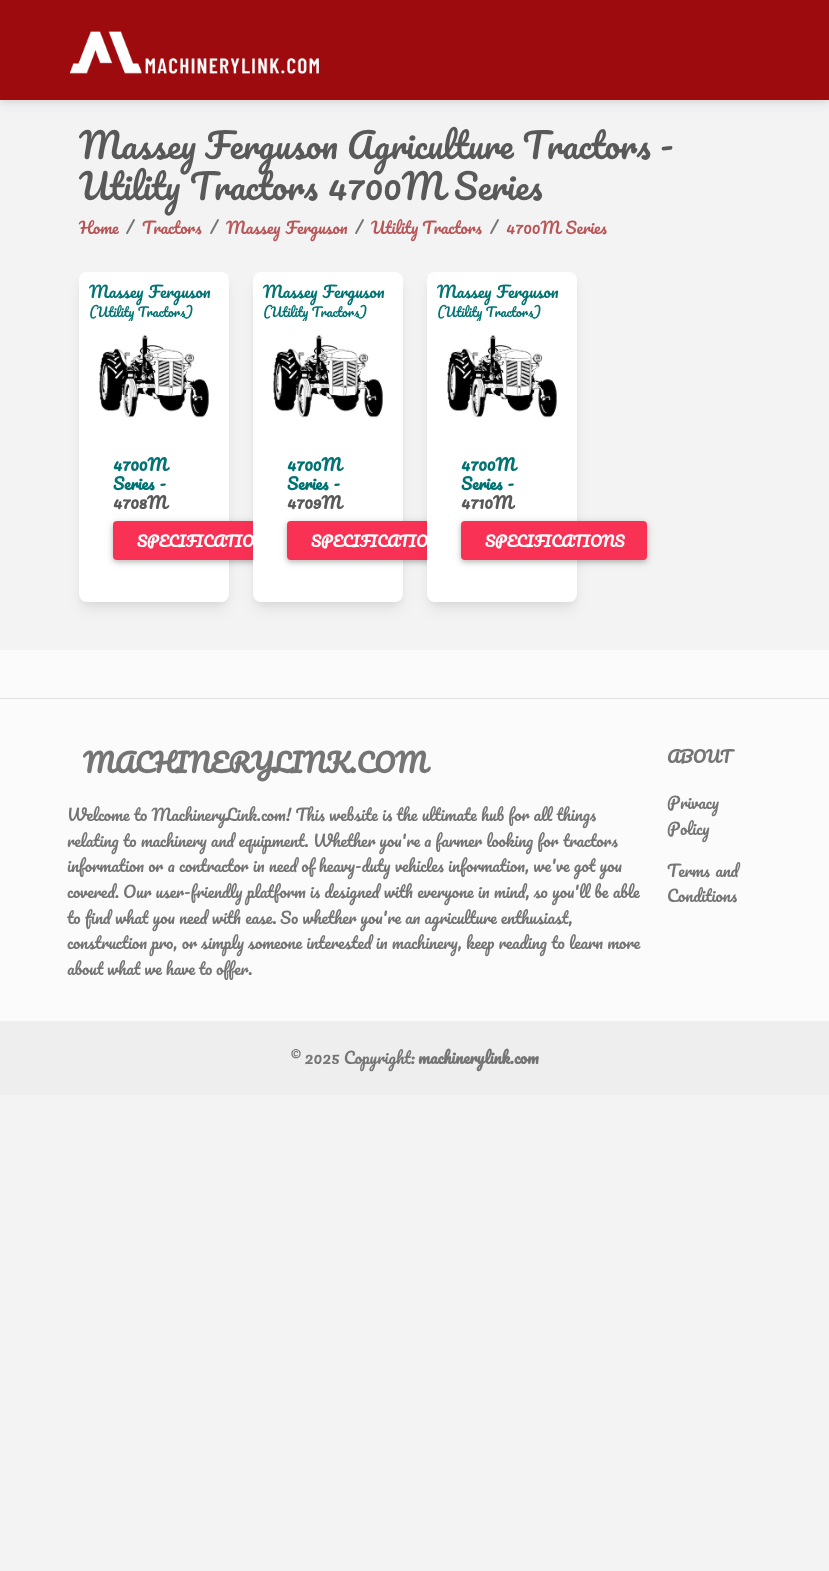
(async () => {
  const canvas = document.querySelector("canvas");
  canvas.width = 829;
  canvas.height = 1571;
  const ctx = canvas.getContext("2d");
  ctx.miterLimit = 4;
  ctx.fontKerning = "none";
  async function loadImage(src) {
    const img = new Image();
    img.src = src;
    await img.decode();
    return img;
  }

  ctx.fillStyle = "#f3f3f3";
  ctx.fillRect(0, 0, 829, 1571);
  ctx.fillStyle = "rgba(0, 0, 0, 0.05)";
  ctx.filter = "blur(2px)";
  ctx.beginPath();
  ctx.rect(0, 2, 829, 100);
  ctx.fill();
  ctx.filter = "none";
  ctx.fillStyle = "rgba(0, 0, 0, 0.07)";
  ctx.filter = "blur(6px)";
  ctx.beginPath();
  ctx.rect(0, 4, 829, 100);
  ctx.fill();
  ctx.filter = "none";
  ctx.fillStyle = "#9e0b0f";
  ctx.fillRect(0, 0, 829, 100);
  ctx.drawImage(await loadImage("img/1.png"), 69, 31, 250, 43);
  ctx.fillStyle = "rgba(0, 0, 0, 0.05)";
  ctx.filter = "blur(3px)";
  ctx.beginPath();
  ctx.roundRect(81, 278, 146, 326, 6);
  ctx.fill();
  ctx.filter = "none";
  ctx.fillStyle = "rgba(0, 0, 0, 0.07)";
  ctx.filter = "blur(7.5px)";
  ctx.beginPath();
  ctx.roundRect(82, 285, 144, 324, 5);
  ctx.fill();
  ctx.filter = "none";
  ctx.fillStyle = "#ffffff";
  ctx.beginPath();
  ctx.roundRect(79, 272, 150, 330, 8);
  ctx.fill();
  ctx.fillStyle = "rgba(0, 0, 0, 0.1)";
  ctx.filter = "blur(5px)";
  ctx.beginPath();
  ctx.roundRect(113, 523, 186, 39, 4);
  ctx.fill();
  ctx.filter = "none";
  ctx.fillStyle = "rgba(0, 0, 0, 0.2)";
  ctx.filter = "blur(2.5px)";
  ctx.beginPath();
  ctx.roundRect(113, 523, 186, 39, 4);
  ctx.fill();
  ctx.filter = "none";
  ctx.fillStyle = "#f93154";
  ctx.beginPath();
  ctx.roundRect(113, 521, 186, 39, 4);
  ctx.fill();
  ctx.fillStyle = "rgba(0, 0, 0, 0.05)";
  ctx.filter = "blur(3px)";
  ctx.beginPath();
  ctx.roundRect(255, 278, 146, 326, 6);
  ctx.fill();
  ctx.filter = "none";
  ctx.fillStyle = "rgba(0, 0, 0, 0.07)";
  ctx.filter = "blur(7.5px)";
  ctx.beginPath();
  ctx.roundRect(256, 285, 144, 324, 5);
  ctx.fill();
  ctx.filter = "none";
  ctx.fillStyle = "#ffffff";
  ctx.beginPath();
  ctx.roundRect(253, 272, 150, 330, 8);
  ctx.fill();
  ctx.fillStyle = "rgba(0, 0, 0, 0.1)";
  ctx.filter = "blur(5px)";
  ctx.beginPath();
  ctx.roundRect(287, 523, 186, 39, 4);
  ctx.fill();
  ctx.filter = "none";
  ctx.fillStyle = "rgba(0, 0, 0, 0.2)";
  ctx.filter = "blur(2.5px)";
  ctx.beginPath();
  ctx.roundRect(287, 523, 186, 39, 4);
  ctx.fill();
  ctx.filter = "none";
  ctx.fillStyle = "#f93154";
  ctx.beginPath();
  ctx.roundRect(287, 521, 186, 39, 4);
  ctx.fill();
  ctx.fillStyle = "rgba(0, 0, 0, 0.05)";
  ctx.filter = "blur(3px)";
  ctx.beginPath();
  ctx.roundRect(429, 278, 146, 326, 6);
  ctx.fill();
  ctx.filter = "none";
  ctx.fillStyle = "rgba(0, 0, 0, 0.07)";
  ctx.filter = "blur(7.5px)";
  ctx.beginPath();
  ctx.roundRect(430, 285, 144, 324, 5);
  ctx.fill();
  ctx.filter = "none";
  ctx.fillStyle = "#ffffff";
  ctx.beginPath();
  ctx.roundRect(427, 272, 150, 330, 8);
  ctx.fill();
  ctx.fillStyle = "rgba(0, 0, 0, 0.1)";
  ctx.filter = "blur(5px)";
  ctx.beginPath();
  ctx.roundRect(461, 523, 186, 39, 4);
  ctx.fill();
  ctx.filter = "none";
  ctx.fillStyle = "rgba(0, 0, 0, 0.2)";
  ctx.filter = "blur(2.5px)";
  ctx.beginPath();
  ctx.roundRect(461, 523, 186, 39, 4);
  ctx.fill();
  ctx.filter = "none";
  ctx.fillStyle = "#f93154";
  ctx.beginPath();
  ctx.roundRect(461, 521, 186, 39, 4);
  ctx.fill();
  for (const [x, y, w, h, color] of [
    [0, 650, 829, 371, "#fbfbfb"],
    [0, 698, 829, 1, "#e0e0e0"],
    [0, 1021, 829, 74, "#eeeeee"],
  ]) {
    ctx.fillStyle = color;
    ctx.fillRect(x, y, w, h);
  }
  ctx.font = "34.4px Pacifico";
  ctx.fillStyle = "#595959";
  ctx.fillText("Massey Ferguson Agriculture Tractors -", 79, 159);
  ctx.wordSpacing = "0.5px";
  ctx.fillText("Utility Tractors 4700M Series", 79, 200);
  ctx.wordSpacing = "0px";
  ctx.font = "16px Pacifico";
  ctx.fillStyle = "#b85759";
  ctx.fillText("Home", 79, 234);
  ctx.fillStyle = "#757575";
  ctx.fillText("/", 126, 234);
  ctx.fillStyle = "#b85759";
  ctx.fillText("Tractors", 142, 234);
  ctx.fillStyle = "#757575";
  ctx.fillText("/", 210, 234);
  ctx.wordSpacing = "1px";
  ctx.fillStyle = "#b85759";
  ctx.fillText("Massey Ferguson", 226, 234);
  ctx.wordSpacing = "0px";
  ctx.fillStyle = "#757575";
  ctx.fillText("/", 355, 234);
  ctx.fillStyle = "#b85759";
  ctx.fillText("Utility Tractors", 371, 234);
  ctx.fillStyle = "#757575";
  ctx.fillText("/", 490, 234);
  ctx.wordSpacing = "1px";
  ctx.fillStyle = "#b85759";
  ctx.fillText("4700M Series", 506, 234);
  ctx.fillStyle = "#027373";
  ctx.fillText("Massey Ferguson", 89, 298);
  ctx.wordSpacing = "0px";
  ctx.font = "12.75px Pacifico";
  ctx.fillText("(Utility Tractors)", 89, 317);
  ctx.drawImage(await loadImage("img/2.png"), 99, 321, 110, 97);
  ctx.font = "bold 16px Pacifico";
  ctx.fillText("4700M", 113, 471);
  ctx.wordSpacing = "1px";
  ctx.fillText("Series -", 113, 490);
  ctx.wordSpacing = "0px";
  ctx.fillStyle = "#595959";
  ctx.fillText("4708M", 113, 509);
  ctx.font = "bold 14.5px Pacifico";
  ctx.fillStyle = "#ffffff";
  ctx.fillText("SPECIFICATIO", 137, 547);
  ctx.wordSpacing = "1px";
  ctx.font = "16px Pacifico";
  ctx.fillStyle = "#027373";
  ctx.fillText("Massey Ferguson", 263, 298);
  ctx.wordSpacing = "0px";
  ctx.font = "12.75px Pacifico";
  ctx.fillText("(Utility Tractors)", 263, 317);
  ctx.drawImage(await loadImage("img/3.png"), 273, 321, 110, 97);
  ctx.font = "bold 16px Pacifico";
  ctx.fillText("4700M", 287, 471);
  ctx.wordSpacing = "1px";
  ctx.fillText("Series -", 287, 490);
  ctx.wordSpacing = "0px";
  ctx.fillStyle = "#595959";
  ctx.fillText("4709M", 287, 509);
  ctx.font = "bold 14.5px Pacifico";
  ctx.fillStyle = "#ffffff";
  ctx.fillText("SPECIFICATIO", 311, 547);
  ctx.wordSpacing = "1px";
  ctx.font = "16px Pacifico";
  ctx.fillStyle = "#027373";
  ctx.fillText("Massey Ferguson", 437, 298);
  ctx.wordSpacing = "0px";
  ctx.font = "12.75px Pacifico";
  ctx.fillText("(Utility Tractors)", 437, 317);
  ctx.drawImage(await loadImage("img/4.png"), 447, 321, 110, 97);
  ctx.font = "bold 16px Pacifico";
  ctx.fillText("4700M", 461, 471);
  ctx.wordSpacing = "1px";
  ctx.fillText("Series -", 461, 490);
  ctx.wordSpacing = "0px";
  ctx.fillStyle = "#595959";
  ctx.fillText("4710M", 461, 509);
  ctx.font = "bold 14.5px Pacifico";
  ctx.fillStyle = "#ffffff";
  ctx.fillText("SPECIFICATIONS", 485, 547);
  ctx.font = "bold 25.75px Pacifico";
  ctx.fillStyle = "#757575";
  ctx.fillText("MACHINERYLINK.COM", 83, 773);
  ctx.font = "16px Pacifico";
  ctx.fillText("Welcome to MachineryLink.com! This website is the ultimate hub for all things", 67, 821);
  ctx.fillText("relating to machinery and equipment.", 67, 847);
  ctx.wordSpacing = "-0.25px";
  ctx.fillText("Whether you're a farmer looking for", 313, 847);
  ctx.wordSpacing = "0px";
  for (const [text, x, y] of [
    ["tractors", 563, 847],
    ["information or a contractor in need of heavy-duty vehicles information, we've got you", 67, 872],
    ["covered.", 67, 898],
    ["Our user-friendly platform is designed with everyone in mind, so you'll be able", 123, 898],
    ["to find what you need with ease.", 67, 924],
  ]) {
    ctx.fillText(text, x, y);
  }
  ctx.wordSpacing = "-0.25px";
  ctx.fillText("So whether you're an agriculture enthusiast,", 280, 924);
  ctx.wordSpacing = "0px";
  ctx.fillText("construction pro, or simply someone interested in machinery,", 67, 949);
  ctx.fillText("keep reading to learn more", 466, 949);
  ctx.wordSpacing = "-0.5px";
  ctx.fillText("about what we have to offer.", 67, 975);
  ctx.wordSpacing = "0px";
  ctx.font = "bold 16px Pacifico";
  ctx.fillText("ABOUT", 667, 763);
  ctx.font = "16px Pacifico";
  ctx.fillText("Privacy", 667, 809);
  ctx.fillText("Policy", 667, 835);
  ctx.wordSpacing = "1px";
  ctx.fillText("Terms and", 667, 877);
  ctx.wordSpacing = "0px";
  ctx.fillText("Conditions", 667, 902);
  ctx.fillText("© 2025 Copyright:", 290, 1064);
  ctx.font = "bold 16px Pacifico";
  ctx.fillText("machinerylink.com", 418, 1064);
})();
